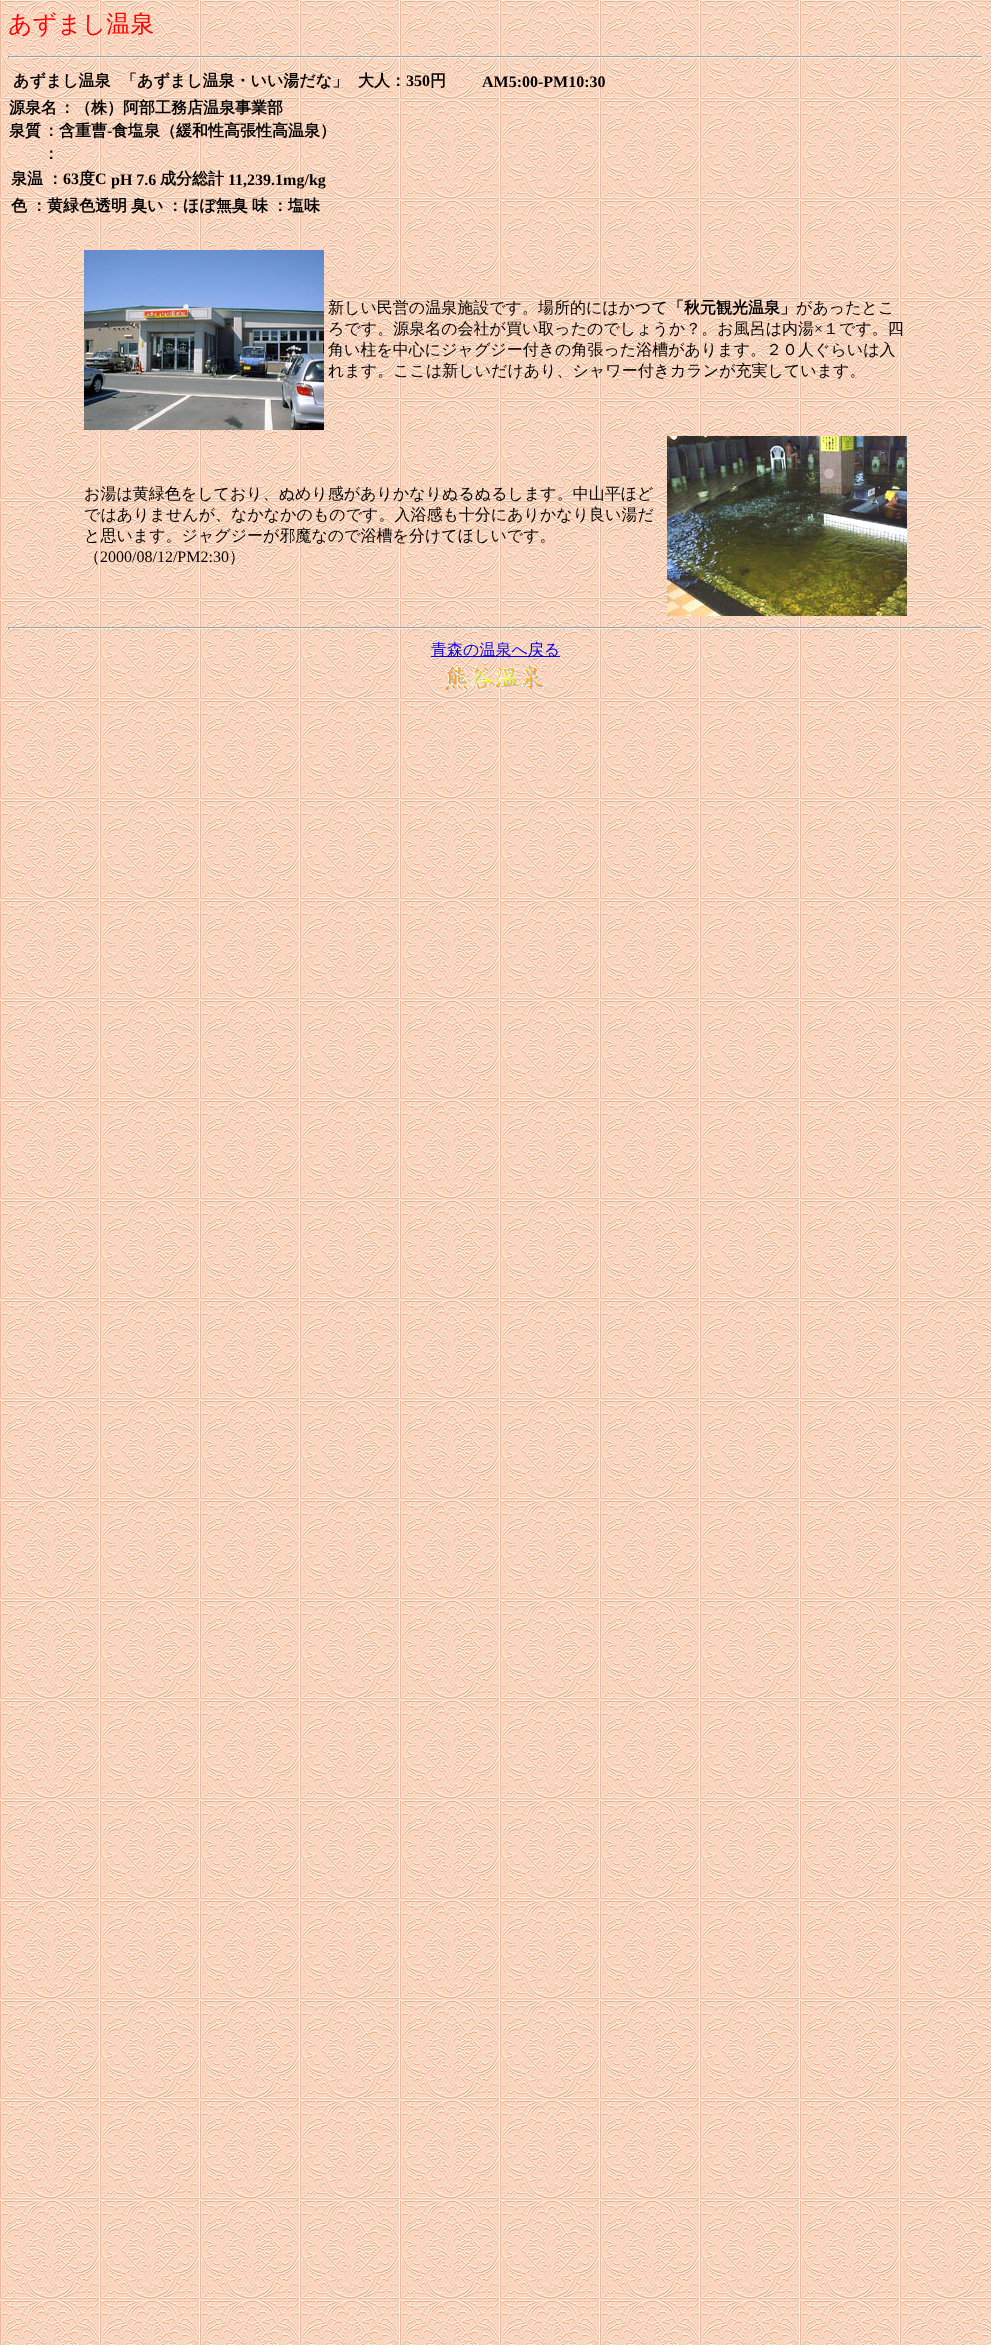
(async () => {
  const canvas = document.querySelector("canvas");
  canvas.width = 991;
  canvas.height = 2345;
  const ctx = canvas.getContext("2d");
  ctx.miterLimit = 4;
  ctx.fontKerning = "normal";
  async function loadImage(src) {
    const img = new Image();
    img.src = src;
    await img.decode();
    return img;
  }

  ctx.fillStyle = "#ffffff";
  ctx.fillRect(0, 0, 991, 2345);
  ctx.drawImage(await loadImage("img/1.png"), 0, 0, 991, 2345);
  for (const [x, y, w, h, color] of [
    [8, 56, 975, 1, "#9f9f9f"],
    [982, 56, 1, 2, "#eeeeee"],
    [8, 57, 975, 1, "#eeeeee"],
    [8, 56, 1, 2, "#9f9f9f"],
  ]) {
    ctx.fillStyle = color;
    ctx.fillRect(x, y, w, h);
  }
  ctx.drawImage(await loadImage("img/2.png"), 84, 250, 240, 180);
  ctx.drawImage(await loadImage("img/3.png"), 667, 436, 240, 180);
  for (const [x, y, w, h, color] of [
    [8, 627, 975, 1, "#9f9f9f"],
    [982, 627, 1, 2, "#eeeeee"],
    [8, 628, 975, 1, "#eeeeee"],
    [8, 627, 1, 2, "#9f9f9f"],
    [431, 656, 129, 1, "#0000ee"],
  ]) {
    ctx.fillStyle = color;
    ctx.fillRect(x, y, w, h);
  }
  ctx.drawImage(await loadImage("img/4.png"), 446, 665, 99, 26);
  ctx.font = "500 24px WenQuanYi Zen Hei";
  ctx.fillStyle = "#ff0000";
  ctx.fillText("あずまし温泉", 8, 32);
  ctx.font = "bold 16px WenQuanYi Zen Hei";
  ctx.fillStyle = "#000000";
  for (const [text, x, y] of [
    ["あずまし温泉", 13, 86],
    ["「あずまし温泉・いい湯だな」", 121, 86],
    ["大人：", 358, 86],
  ]) {
    ctx.fillText(text, x, y);
  }
  ctx.font = "bold 16px Liberation Serif";
  ctx.fillText("350", 406, 86);
  ctx.font = "bold 16px WenQuanYi Zen Hei";
  ctx.fillText("円", 430, 86);
  ctx.font = "bold 16px Liberation Serif";
  ctx.fillText("AM5:00-PM10:30", 482, 87);
  ctx.font = "bold 16px WenQuanYi Zen Hei";
  for (const [text, x, y] of [
    ["源泉名", 9, 113],
    ["：（株）阿部工務店温泉事業部", 59, 113],
    ["泉質", 9, 136],
    ["：含重曹", 43, 136],
  ]) {
    ctx.fillText(text, x, y);
  }
  ctx.font = "bold 16px Liberation Serif";
  ctx.fillText("-", 107, 136);
  ctx.font = "bold 16px WenQuanYi Zen Hei";
  for (const [text, x, y] of [
    ["食塩泉（緩和性高張性高温泉）", 112, 136],
    ["：", 43, 159],
    ["泉温", 11, 184],
    ["：", 47, 184],
  ]) {
    ctx.fillText(text, x, y);
  }
  ctx.font = "bold 16px Liberation Serif";
  ctx.fillText("63", 63, 184);
  ctx.font = "bold 16px WenQuanYi Zen Hei";
  ctx.fillText("度", 79, 184);
  ctx.font = "bold 16px Liberation Serif";
  ctx.fillText("C", 95, 184);
  ctx.fillText("pH 7.6", 111, 185);
  ctx.font = "bold 16px WenQuanYi Zen Hei";
  ctx.fillText("成分総計", 160, 184);
  ctx.font = "bold 16px Liberation Serif";
  ctx.fillText("11,239.1mg/kg", 228, 185);
  ctx.font = "bold 16px WenQuanYi Zen Hei";
  for (const [text, x, y] of [
    ["色", 11, 211],
    ["：黄緑色透明", 31, 211],
    ["臭い", 131, 211],
    ["：ほぼ無臭", 167, 211],
    ["味", 252, 211],
    ["：塩味", 272, 211],
  ]) {
    ctx.fillText(text, x, y);
  }
  ctx.font = "500 16px WenQuanYi Zen Hei";
  ctx.fillText("新しい民営の温泉施設です。場所的にはかつて", 328, 313);
  ctx.font = "bold 16px WenQuanYi Zen Hei";
  ctx.fillText("「秋元観光温泉」", 668, 313);
  ctx.font = "500 16px WenQuanYi Zen Hei";
  ctx.fillText("があったとこ", 796, 313);
  ctx.fillText("ろです。源泉名の会社が買い取ったのでしょうか？。お風呂は内湯", 328, 334);
  ctx.font = "16px Liberation Serif";
  ctx.fillText("×", 814, 334);
  ctx.font = "500 16px WenQuanYi Zen Hei";
  for (const [text, x, y] of [
    ["１です。四", 823, 334],
    ["角い柱を中心にジャグジー付きの角張った浴槽があります。２０人ぐらいは入", 328, 355],
    ["れます。ここは新しいだけあり、シャワー付きカランが充実しています。", 328, 376],
    ["お湯は黄緑色をしており、ぬめり感がありかなりぬるぬるします。中山平ほど", 84, 499],
    ["ではありませんが、なかなかのものです。入浴感も十分にありかなり良い湯だ", 84, 520],
    ["と思います。ジャグジーが邪魔なので浴槽を分けてほしいです。", 84, 541],
    ["（", 84, 562],
  ]) {
    ctx.fillText(text, x, y);
  }
  ctx.font = "16px Liberation Serif";
  ctx.fillText("2000/08/12/PM2:30", 100, 562);
  ctx.font = "500 16px WenQuanYi Zen Hei";
  ctx.fillText("）", 229, 562);
  ctx.fillStyle = "#0000ee";
  ctx.fillText("青森の温泉へ戻る", 431, 655);
})();
